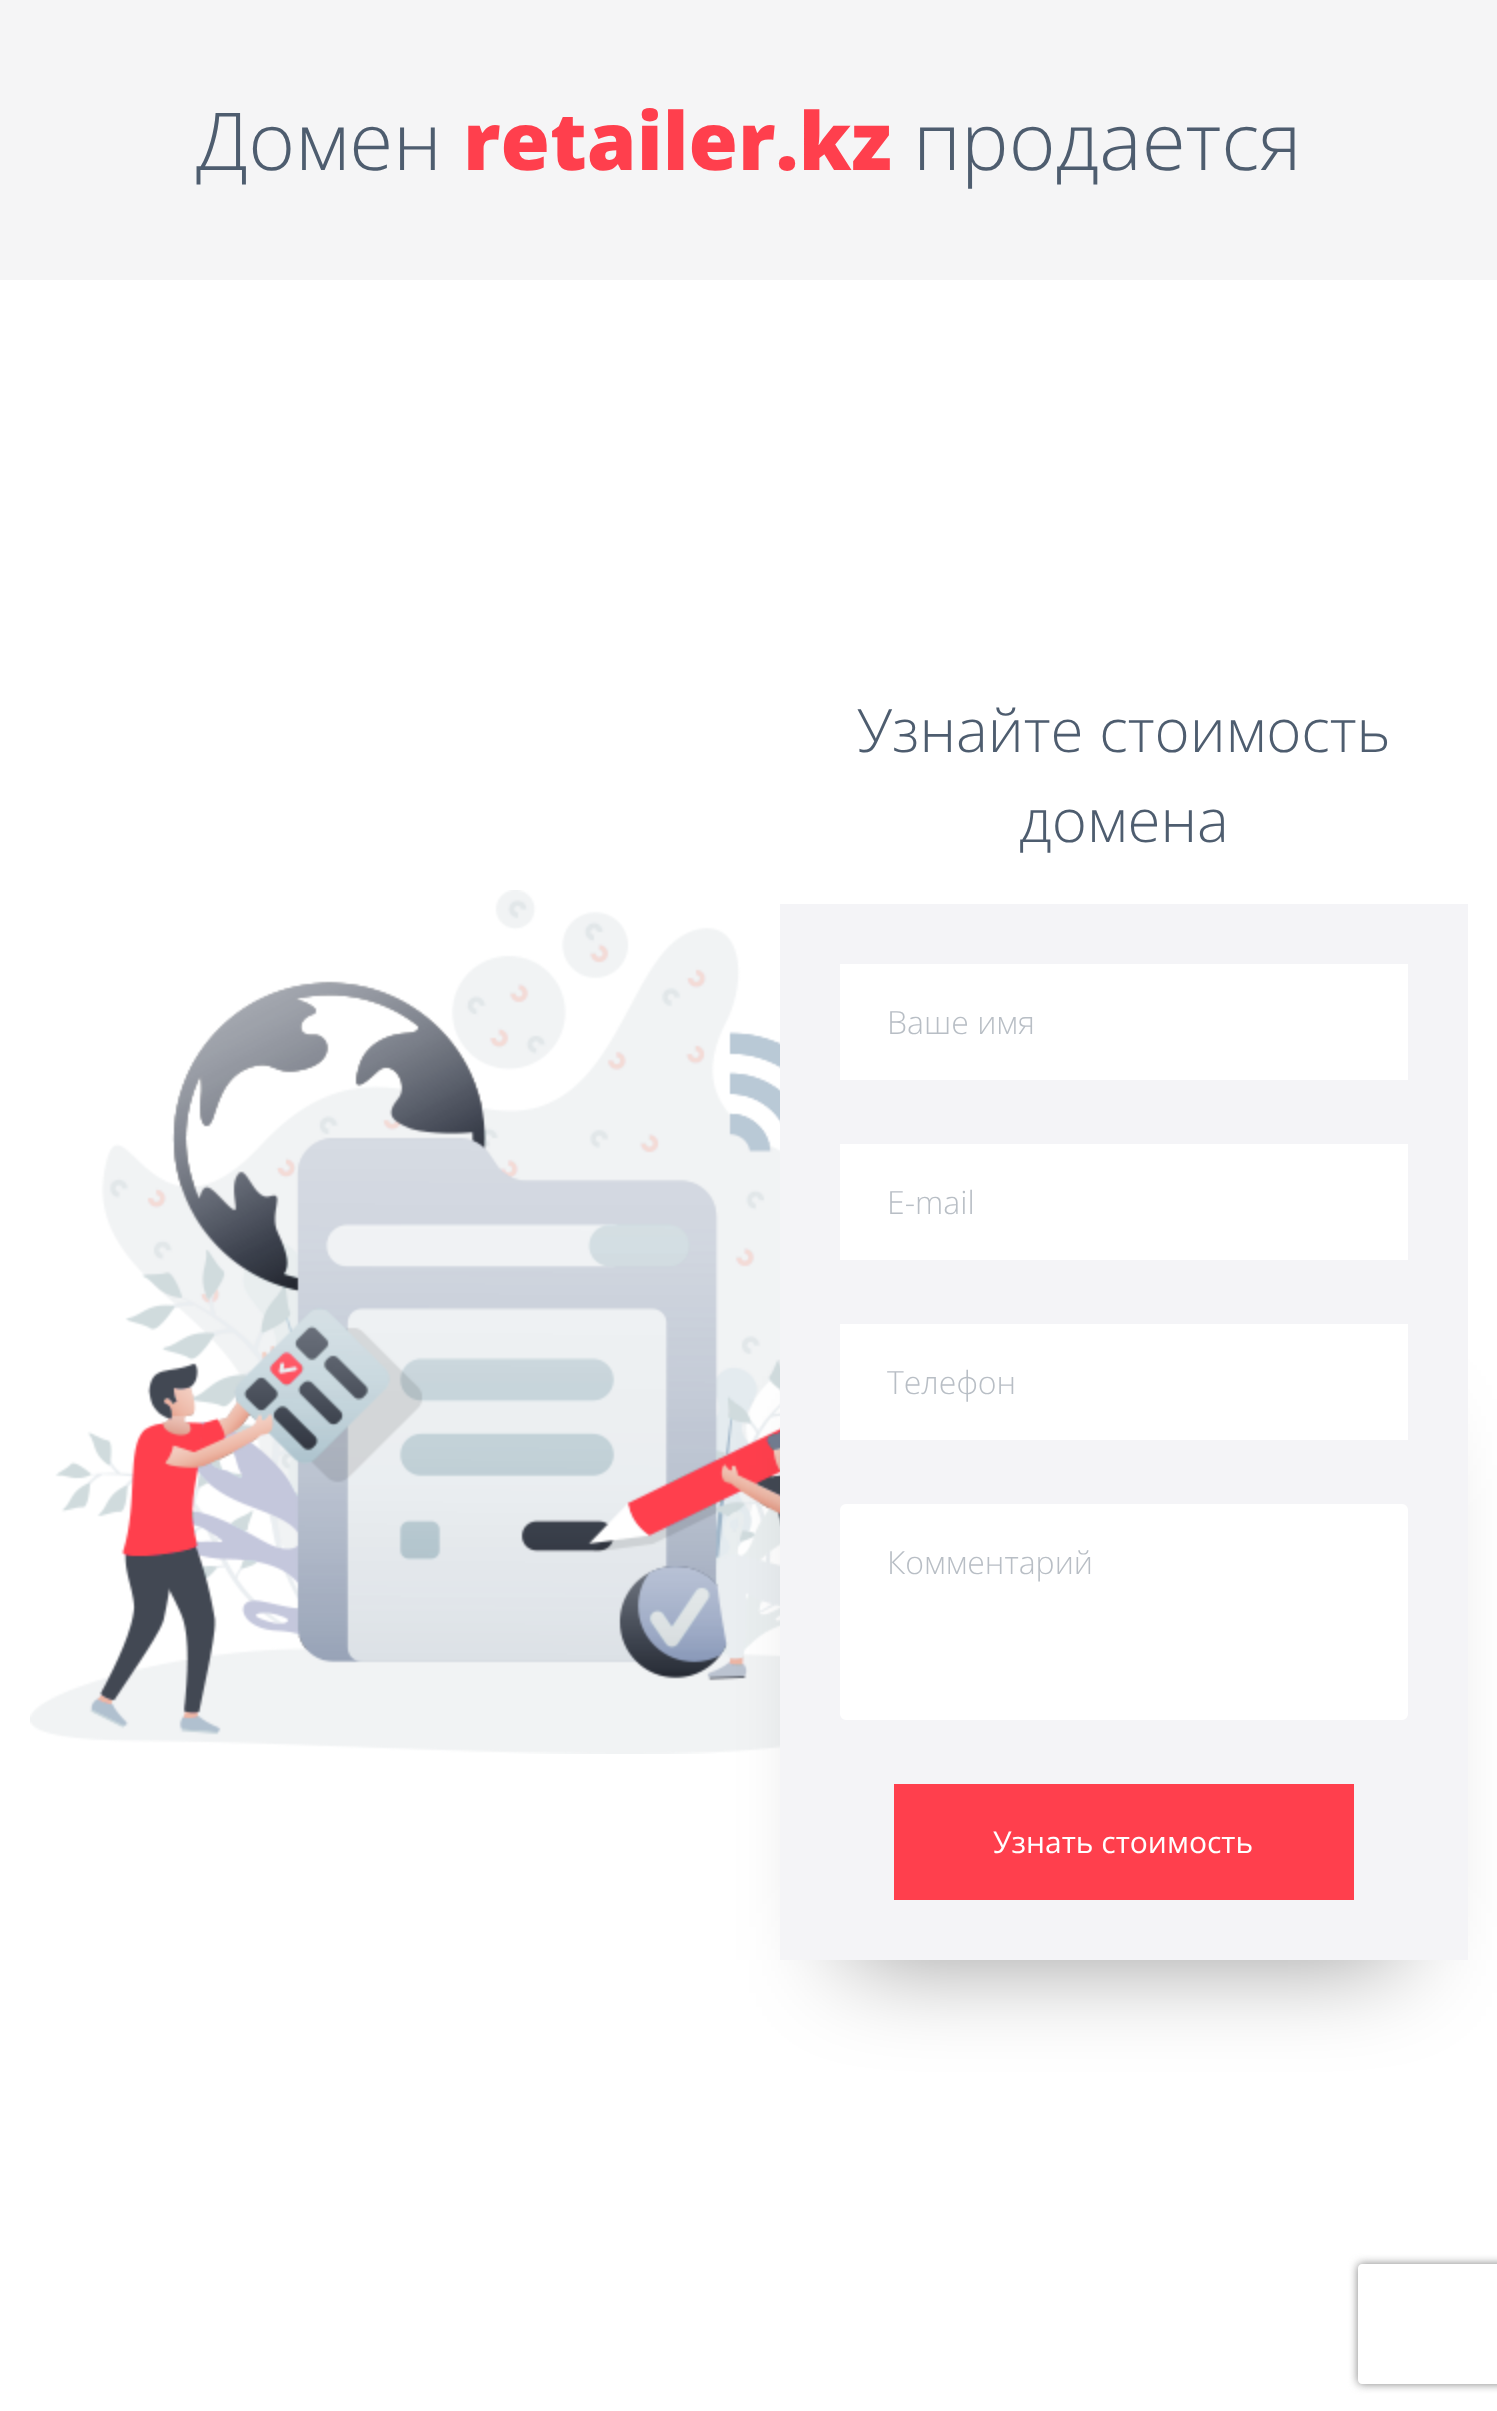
(async () => {
  const canvas = document.querySelector("canvas");
  canvas.width = 1497;
  canvas.height = 2411;
  const ctx = canvas.getContext("2d");
  ctx.miterLimit = 4;
  ctx.fontKerning = "normal";
  async function loadImage(src) {
    const img = new Image();
    img.src = src;
    await img.decode();
    return img;
  }
  let path;

  ctx.fillStyle = "#ffffff";
  ctx.fillRect(0, 0, 1497, 2411);
  ctx.fillStyle = "#f5f5f6";
  ctx.fillRect(0, 0, 1497, 280);
  ctx.drawImage(await loadImage("img/1.png"), 30, 890, 750, 864);
  ctx.fillStyle = "rgba(0, 0, 0, 0.4)";
  ctx.filter = "blur(50px)";
  ctx.beginPath();
  ctx.rect(848, 1432, 552, 528);
  ctx.fill();
  ctx.filter = "none";
  for (const [x, y, w, h, color] of [
    [780, 904, 688, 1056, "#f4f4f7"],
    [840, 964, 568, 116, "#ffffff"],
    [840, 1144, 568, 116, "#ffffff"],
    [840, 1324, 568, 116, "#ffffff"],
  ]) {
    ctx.fillStyle = color;
    ctx.fillRect(x, y, w, h);
  }
  ctx.beginPath();
  ctx.roundRect(842, 1506, 564, 212, 4);
  ctx.fill();
  ctx.strokeStyle = "#ffffff";
  ctx.lineWidth = 4;
  ctx.stroke();
  ctx.fillStyle = "#ff3f4d";
  ctx.fillRect(894, 1784, 460, 116);
  ctx.save();
  path = new Path2D("M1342 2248H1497V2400H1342ZM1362 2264H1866C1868 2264 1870 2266 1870 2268V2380C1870 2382 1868 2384 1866 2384H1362C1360 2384 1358 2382 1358 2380V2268C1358 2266 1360 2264 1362 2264Z");
  ctx.clip(path, "evenodd");
  ctx.fillStyle = "#808080";
  ctx.filter = "blur(5px)";
  ctx.beginPath();
  ctx.roundRect(1358, 2264, 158, 120, 4);
  ctx.fill();
  ctx.filter = "none";
  ctx.restore();
  ctx.font = "300 80px Open Sans";
  ctx.fillStyle = "#4e5d6f";
  ctx.fillText("Домен", 196, 170);
  ctx.font = "800 80px Open Sans";
  ctx.fillStyle = "#ff3f4d";
  ctx.fillText("retailer.kz", 463, 170);
  ctx.font = "300 80px Open Sans";
  ctx.fillStyle = "#4e5d6f";
  ctx.fillText("продается", 913, 170);
  ctx.font = "300 60px Open Sans";
  ctx.fillText("Узнайте стоимость", 857, 752);
  ctx.fillText("домена", 1019, 842);
  ctx.font = "300 32px Open Sans";
  ctx.fillStyle = "#b8bec5";
  for (const [text, x, y] of [
    ["Ваше имя", 887, 1034],
    ["E-mail", 887, 1214],
    ["Телефон", 887, 1394],
    ["Комментарий", 887, 1574],
  ]) {
    ctx.fillText(text, x, y);
  }
  ctx.font = "30px Open Sans";
  ctx.fillStyle = "#ffffff";
  ctx.fillText("Узнать стоимость", 993, 1853);
})();
